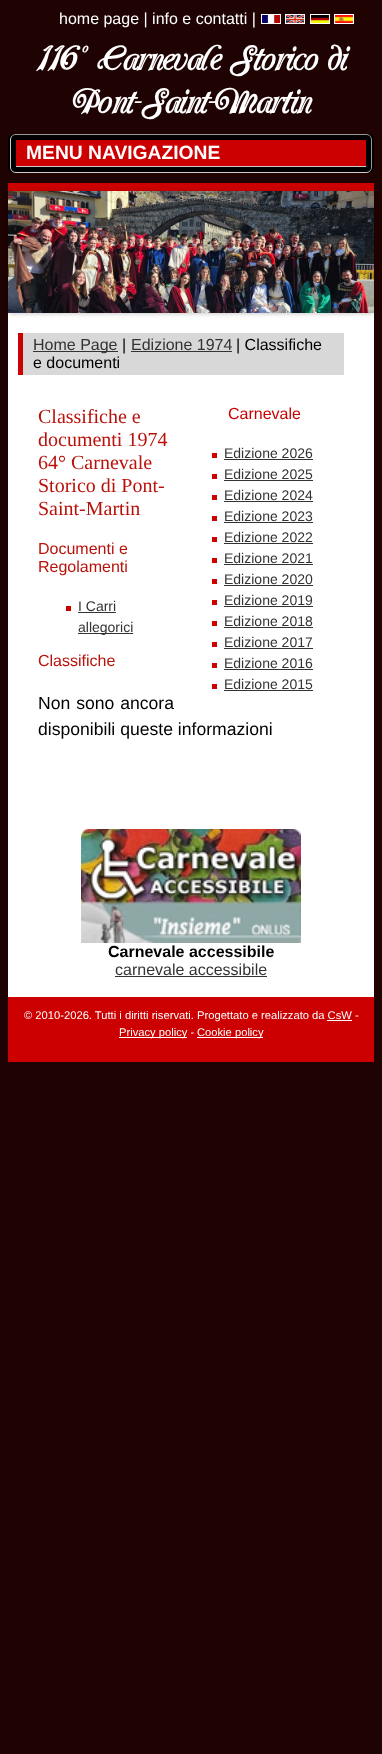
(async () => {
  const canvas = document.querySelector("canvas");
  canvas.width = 382;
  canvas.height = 1754;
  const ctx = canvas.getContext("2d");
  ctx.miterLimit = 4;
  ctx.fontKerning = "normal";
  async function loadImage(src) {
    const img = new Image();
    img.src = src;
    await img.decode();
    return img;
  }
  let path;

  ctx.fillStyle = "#1f0303";
  ctx.fillRect(0, 0, 382, 1754);
  ctx.strokeStyle = "#ffffff";
  ctx.strokeRect(261.5, 14.5, 19, 9);
  ctx.strokeRect(285.5, 14.5, 19, 9);
  ctx.strokeRect(310.5, 14.5, 19, 9);
  ctx.strokeRect(334.5, 14.5, 19, 9);
  ctx.drawImage(await loadImage("img/1.png"), 262, 15, 18, 8);
  ctx.drawImage(await loadImage("img/2.png"), 286, 15, 18, 8);
  ctx.drawImage(await loadImage("img/3.png"), 311, 15, 18, 8);
  ctx.drawImage(await loadImage("img/4.png"), 335, 15, 18, 8);
  ctx.fillStyle = "#000000";
  ctx.beginPath();
  ctx.roundRect(8, 134, 366, 39, 6);
  ctx.fill();
  path = new Path2D("M12 136C13 135 14.5 134.5 16 134.5H366C367.5 134.5 369 135 370 136C371 137 371.5 138.5 371.5 140V167C371.5 168.5 371 170 370 171");
  ctx.strokeStyle = "#999999";
  ctx.stroke(path);
  path = new Path2D("M370 171C369 172 367.5 172.5 366 172.5H16C14.5 172.5 13 172 12 171C11 170 10.5 168.5 10.5 167V140C10.5 138.5 11 137 12 136");
  ctx.strokeStyle = "#cccccc";
  ctx.stroke(path);
  for (const [x, y, w, h, color] of [
    [16, 140, 350, 26, "#cc0000"],
    [16, 166, 350, 1, "#cccccc"],
    [8, 183, 366, 8, "#cc0000"],
    [8, 313, 366, 684, "#ffffff"],
  ]) {
    ctx.fillStyle = color;
    ctx.fillRect(x, y, w, h);
  }
  ctx.fillStyle = "rgba(0, 0, 0, 0.2)";
  ctx.filter = "blur(2px)";
  ctx.beginPath();
  ctx.roundRect(8, 192, 366, 122, 4);
  ctx.fill();
  ctx.filter = "none";
  ctx.drawImage(await loadImage("img/5.png"), 8, 191, 366, 122);
  for (const [x, y, w, h, color] of [
    [23, 333, 321, 42, "#d8d8d8"],
    [18, 333, 5, 42, "#cc0000"],
    [33, 351, 85, 1, "#333333"],
    [131, 351, 101, 1, "#333333"],
    [212, 453, 5, 5, "#cc0000"],
    [224, 459, 89, 1, "#333333"],
    [212, 474, 5, 5, "#cc0000"],
    [224, 480, 89, 1, "#333333"],
    [212, 495, 5, 5, "#cc0000"],
    [224, 501, 89, 1, "#333333"],
    [212, 516, 5, 5, "#cc0000"],
    [224, 522, 89, 1, "#333333"],
    [212, 537, 5, 5, "#cc0000"],
    [224, 543, 89, 1, "#333333"],
    [212, 558, 5, 5, "#cc0000"],
    [224, 564, 89, 1, "#333333"],
    [212, 579, 5, 5, "#cc0000"],
    [224, 585, 89, 1, "#333333"],
    [212, 600, 5, 5, "#cc0000"],
    [224, 606, 89, 1, "#333333"],
    [212, 621, 5, 5, "#cc0000"],
    [224, 627, 89, 1, "#333333"],
    [212, 642, 5, 5, "#cc0000"],
    [224, 648, 89, 1, "#333333"],
    [212, 663, 5, 5, "#cc0000"],
    [224, 669, 89, 1, "#333333"],
    [212, 684, 5, 5, "#cc0000"],
    [224, 690, 89, 1, "#333333"],
    [66, 606, 5, 5, "#cc0000"],
    [78, 612, 38, 1, "#333333"],
    [78, 633, 55, 1, "#333333"],
  ]) {
    ctx.fillStyle = color;
    ctx.fillRect(x, y, w, h);
  }
  ctx.drawImage(await loadImage("img/6.png"), 81, 829, 220, 114);
  for (const [x, y, w, h, color] of [
    [115, 976, 152, 1, "#333333"],
    [8, 997, 366, 65, "#cc0000"],
    [327, 1020, 25, 1, "#ffffff"],
    [119, 1037, 68, 1, "#ffffff"],
    [197, 1037, 66, 1, "#ffffff"],
  ]) {
    ctx.fillStyle = color;
    ctx.fillRect(x, y, w, h);
  }
  ctx.font = "16px Liberation Sans";
  ctx.fillText("home page | info e contatti |", 59, 24);
  ctx.letterSpacing = "-1px";
  ctx.font = "35.25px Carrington";
  ctx.fillText("116° Carnevale Storico di", 37, 70);
  ctx.fillText("Pont-Saint-Martin", 72, 113);
  ctx.letterSpacing = "0px";
  ctx.font = "bold 19.25px Liberation Sans";
  ctx.fillText("MENU NAVIGAZIONE", 26, 159);
  ctx.font = "16px Liberation Sans";
  ctx.fillStyle = "#333333";
  ctx.fillText("Home Page", 33, 350);
  ctx.fillStyle = "#000000";
  ctx.fillText("|", 122, 350);
  ctx.fillStyle = "#333333";
  ctx.fillText("Edizione 1974", 131, 350);
  ctx.fillStyle = "#000000";
  ctx.fillText("| Classifiche", 236, 350);
  ctx.fillText("e documenti", 33, 368);
  ctx.font = "20px Liberation Serif";
  ctx.fillStyle = "#b8120b";
  for (const [text, x, y] of [
    ["Classifiche e", 38, 423],
    ["documenti 1974", 38, 446],
    ["64° Carnevale", 38, 469],
    ["Storico di Pont-", 38, 492],
    ["Saint-Martin", 38, 515],
  ]) {
    ctx.fillText(text, x, y);
  }
  ctx.font = "16px Liberation Sans";
  ctx.fillStyle = "#cc0000";
  ctx.fillText("Carnevale", 228, 419);
  ctx.font = "14px Liberation Sans";
  ctx.fillStyle = "#333333";
  for (const [text, x, y] of [
    ["Edizione 2026", 224, 458],
    ["Edizione 2025", 224, 479],
    ["Edizione 2024", 224, 500],
    ["Edizione 2023", 224, 521],
    ["Edizione 2022", 224, 542],
    ["Edizione 2021", 224, 563],
    ["Edizione 2020", 224, 584],
    ["Edizione 2019", 224, 605],
    ["Edizione 2018", 224, 626],
    ["Edizione 2017", 224, 647],
    ["Edizione 2016", 224, 668],
    ["Edizione 2015", 224, 689],
  ]) {
    ctx.fillText(text, x, y);
  }
  ctx.font = "16px Liberation Sans";
  ctx.fillStyle = "#b8120b";
  ctx.fillText("Documenti e", 38, 554);
  ctx.fillText("Regolamenti", 38, 572);
  ctx.font = "14px Liberation Sans";
  ctx.fillStyle = "#333333";
  ctx.fillText("I Carri", 78, 611);
  ctx.fillText("allegorici", 78, 632);
  ctx.font = "16px Liberation Sans";
  ctx.fillStyle = "#b8120b";
  ctx.fillText("Classifiche", 38, 666);
  ctx.wordSpacing = "1px";
  ctx.font = "17.6px Liberation Sans";
  ctx.fillStyle = "#000000";
  ctx.fillText("Non sono ancora", 38, 709);
  ctx.wordSpacing = "0px";
  ctx.fillText("disponibili queste informazioni", 38, 735);
  ctx.font = "bold 16px Liberation Sans";
  ctx.fillText("Carnevale accessibile", 108, 957);
  ctx.font = "16px Liberation Sans";
  ctx.fillStyle = "#333333";
  ctx.fillText("carnevale accessibile", 115, 975);
  ctx.font = "11.2px Liberation Sans";
  ctx.fillStyle = "#ffffff";
  for (const [text, x, y] of [
    ["© 2010-2026. Tutti i diritti riservati. Progettato e realizzato da CsW -", 24, 1019],
    ["Privacy policy -", 119, 1036],
    ["Cookie policy", 197, 1036],
  ]) {
    ctx.fillText(text, x, y);
  }
})();
